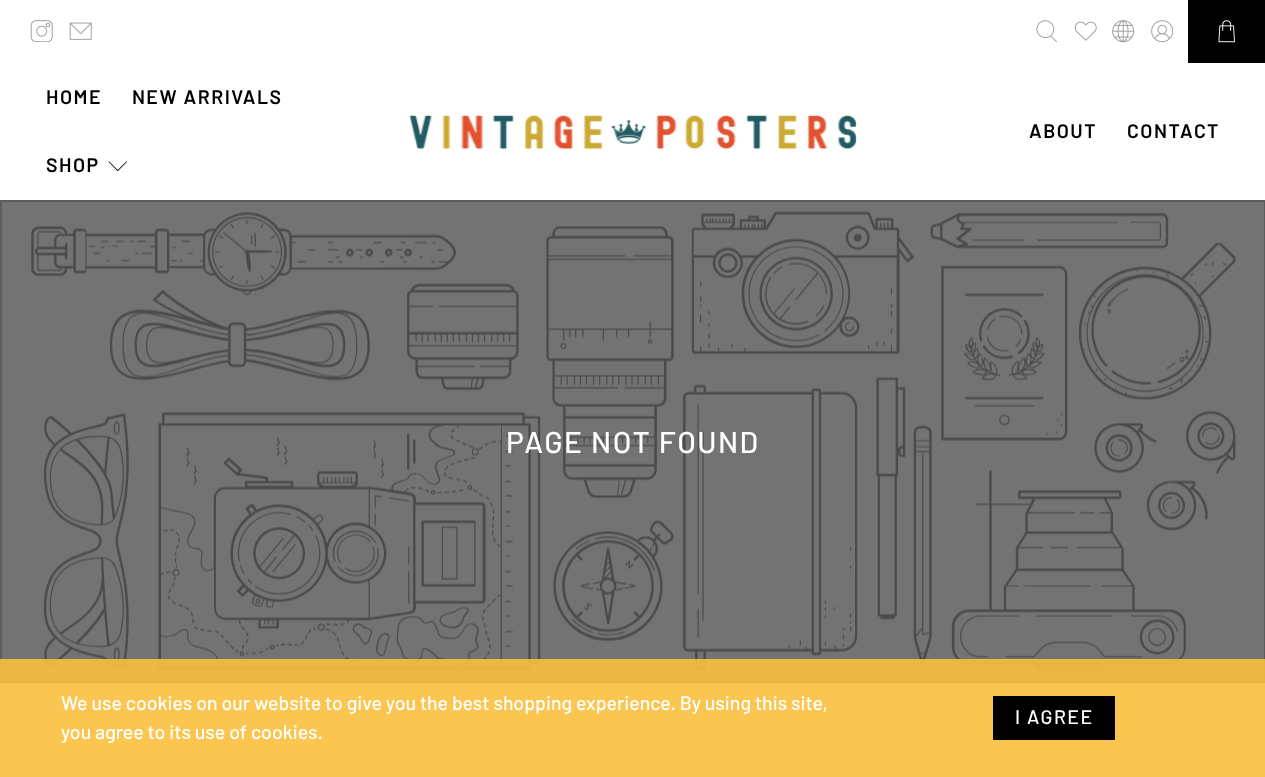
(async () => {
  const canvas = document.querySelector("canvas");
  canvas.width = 1265;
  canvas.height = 777;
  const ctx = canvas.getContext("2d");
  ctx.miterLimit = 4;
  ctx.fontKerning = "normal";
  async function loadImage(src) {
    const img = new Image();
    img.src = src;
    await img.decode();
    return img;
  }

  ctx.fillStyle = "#ffffff";
  ctx.fillRect(0, 0, 1265, 777);
  ctx.drawImage(await loadImage("img/1.png"), 30, 20, 23, 22);
  ctx.drawImage(await loadImage("img/2.png"), 69, 22, 23, 18);
  ctx.drawImage(await loadImage("img/3.png"), 1036, 20, 21, 23);
  ctx.drawImage(await loadImage("img/4.png"), 1074, 21, 23, 20);
  ctx.drawImage(await loadImage("img/5.png"), 1112, 20, 23, 23);
  ctx.drawImage(await loadImage("img/6.png"), 1151, 20, 22, 23);
  ctx.fillStyle = "#000000";
  ctx.fillRect(1188, 0, 77, 63);
  ctx.drawImage(await loadImage("img/7.png"), 1218, 20, 17, 23);
  ctx.drawImage(await loadImage("img/8.png"), 108, 161, 19, 10);
  ctx.drawImage(await loadImage("img/9.png"), 409, 115, 448, 35);
  ctx.fillStyle = "#737373";
  ctx.beginPath();
  ctx.rect(1, 201, 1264, 481);
  ctx.fill();
  ctx.strokeStyle = "#5c5c5c";
  ctx.lineWidth = 2;
  ctx.stroke();
  ctx.drawImage(await loadImage("img/10.png"), 31, 211, 1205, 460);
  ctx.fillStyle = "rgba(250, 192, 62, 0.9)";
  ctx.fillRect(0, 659, 1265, 118);
  ctx.fillStyle = "#000000";
  ctx.fillRect(993, 696, 122, 44);
  ctx.letterSpacing = "1.5px";
  ctx.font = "600 19.5px Barlow";
  for (const [text, x, y] of [
    ["HOME", 46, 104],
    ["NEW ARRIVALS", 132, 104],
    ["SHOP", 46, 172],
    ["ABOUT", 1029, 138],
    ["CONTACT", 1127, 138],
  ]) {
    ctx.fillText(text, x, y);
  }
  ctx.font = "500 30px Barlow";
  ctx.fillStyle = "#ffffff";
  ctx.fillText("PAGE NOT FOUND", 506, 453);
  ctx.letterSpacing = "0px";
  ctx.font = "500 19.5px Barlow";
  ctx.fillText("We use cookies on our website to give you the best shopping experience. By using this site,", 61, 710);
  ctx.fillText("you agree to its use of cookies.", 61, 739);
  ctx.letterSpacing = "1.5px";
  ctx.fillText("I AGREE", 1015, 724);
})();
